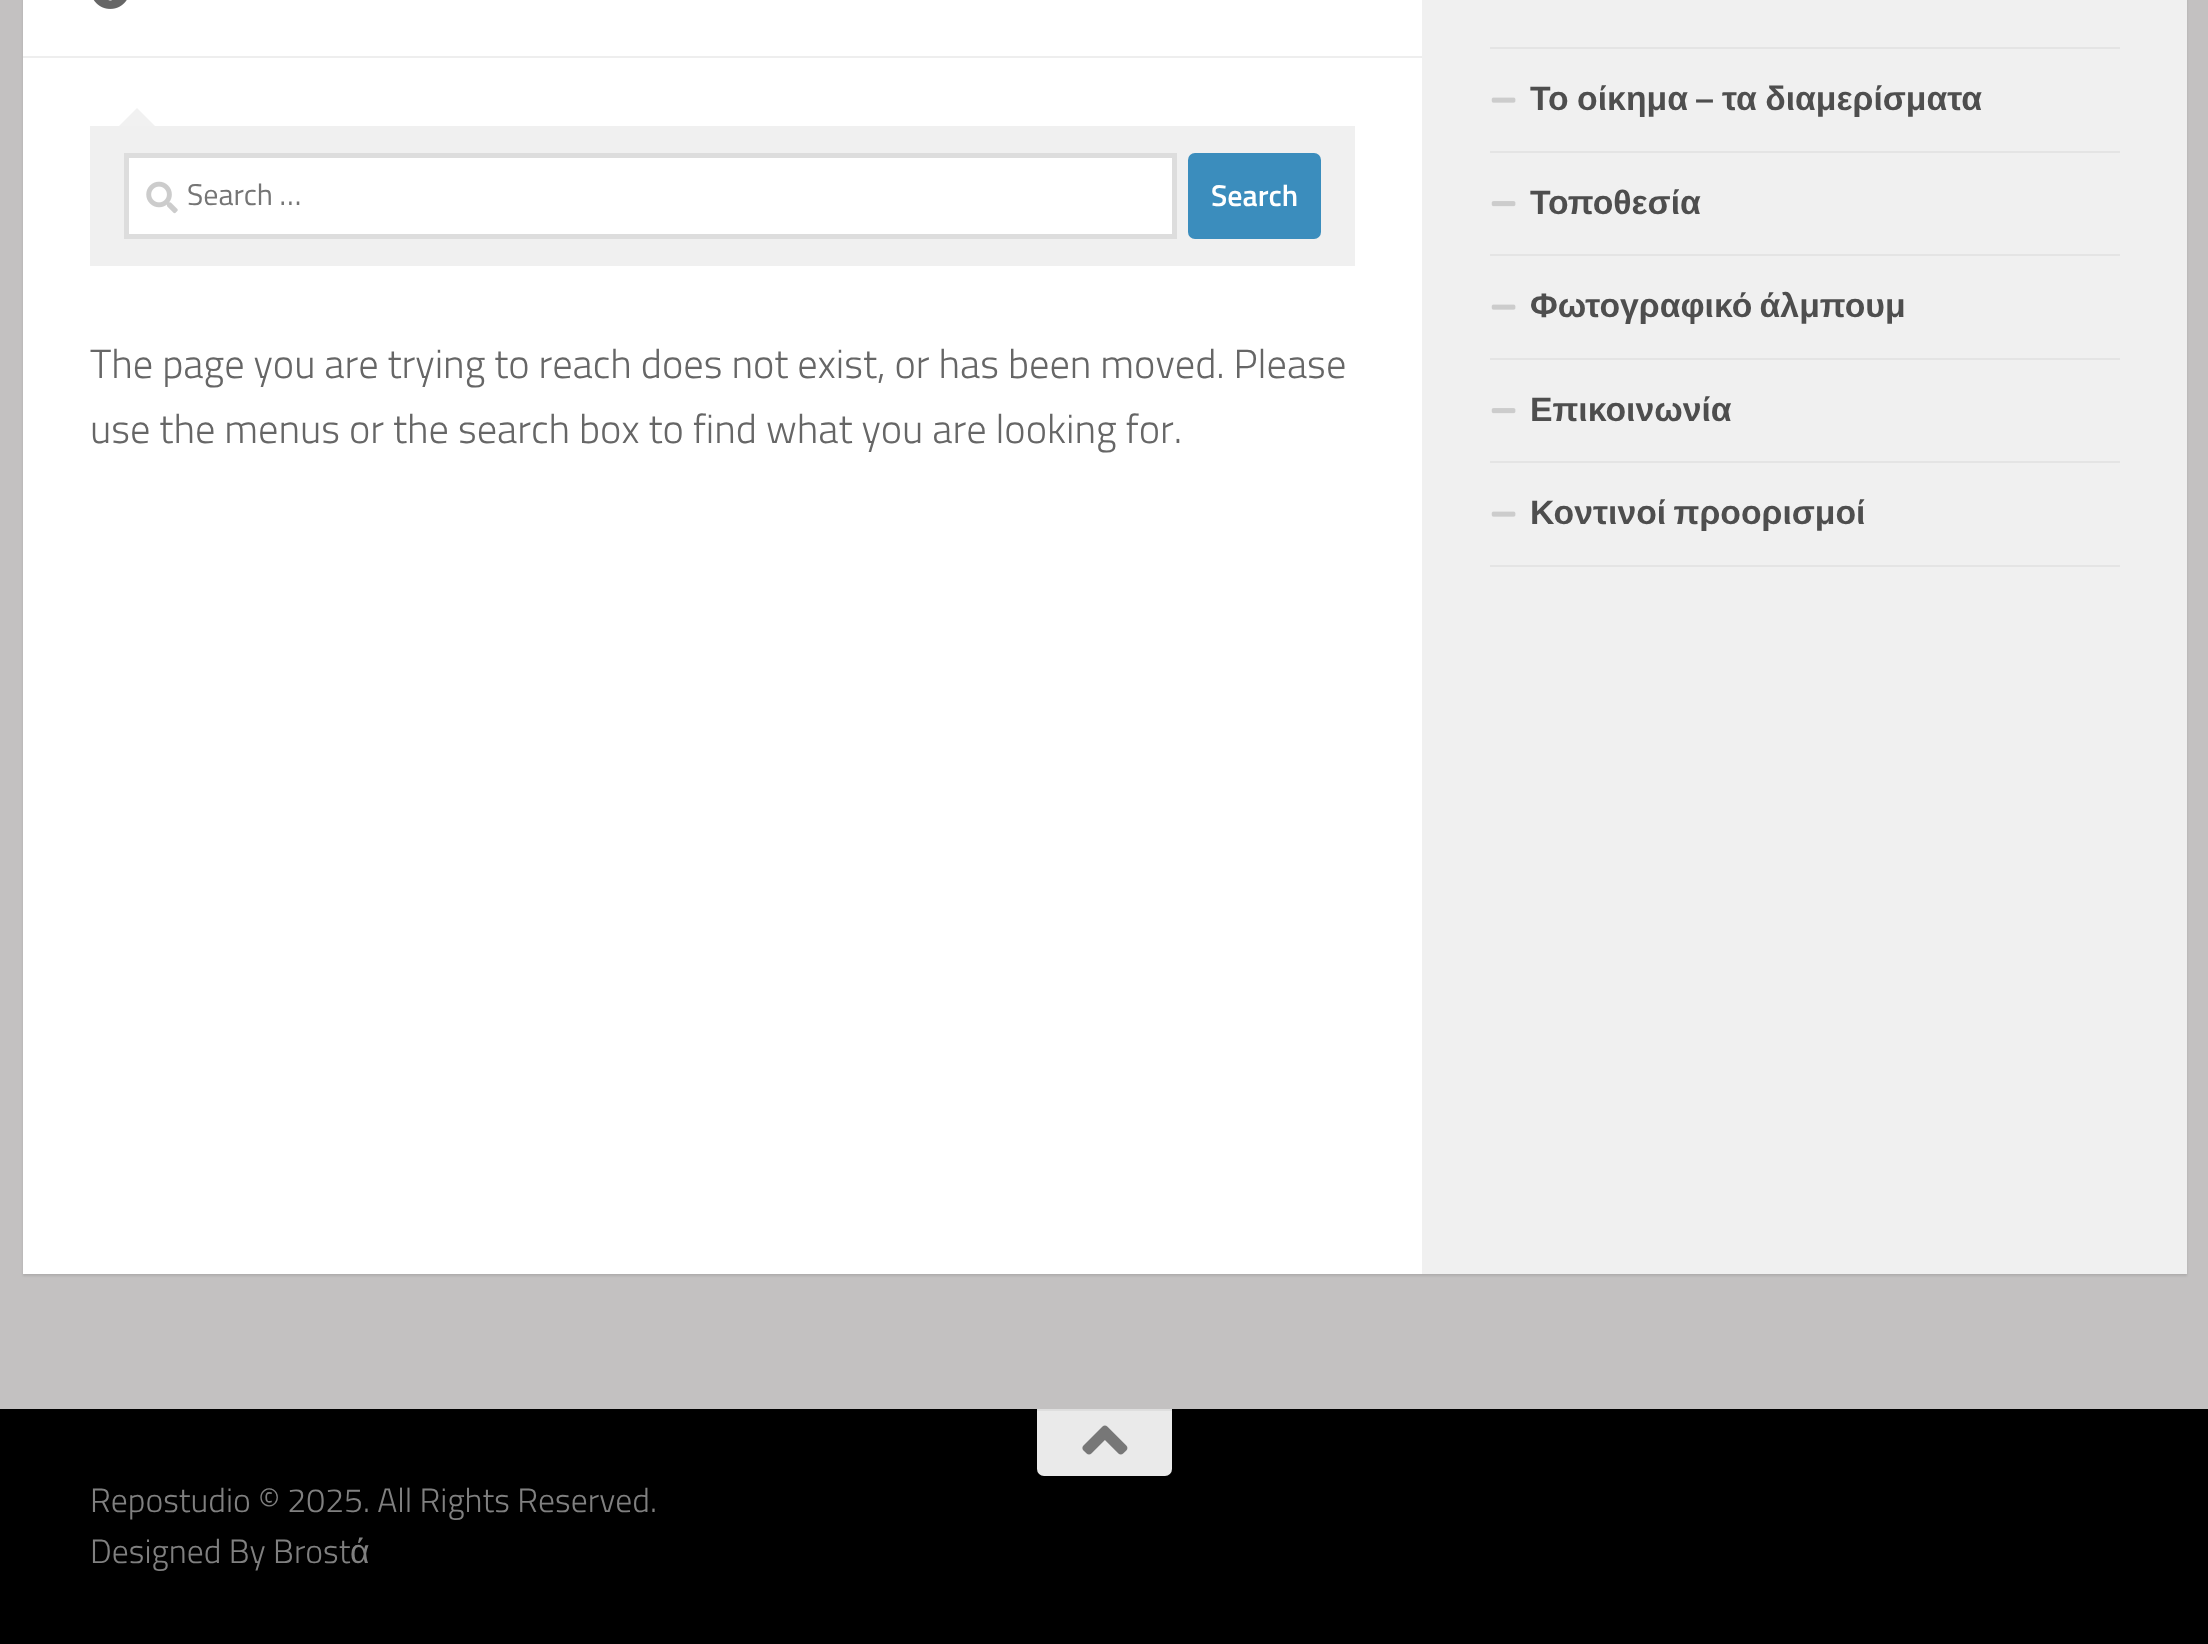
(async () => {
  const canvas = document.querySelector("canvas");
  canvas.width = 2208;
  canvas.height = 1644;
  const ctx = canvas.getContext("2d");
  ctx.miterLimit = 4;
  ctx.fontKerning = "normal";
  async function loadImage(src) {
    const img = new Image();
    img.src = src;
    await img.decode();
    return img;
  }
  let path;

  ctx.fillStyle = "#c3c1c1";
  ctx.fillRect(0, 0, 2208, 1644);
  ctx.fillStyle = "rgba(0, 0, 0, 0.1)";
  ctx.filter = "blur(1px)";
  ctx.beginPath();
  ctx.rect(23, -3, 2164, 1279);
  ctx.fill();
  ctx.filter = "none";
  for (const [x, y, w, h, color] of [
    [23, 0, 1399, 1274, "#ffffff"],
    [1422, 0, 765, 1274, "#f0f0f0"],
    [23, 56, 1399, 2, "#eeeeee"],
  ]) {
    ctx.fillStyle = color;
    ctx.fillRect(x, y, w, h);
  }
  ctx.drawImage(await loadImage("img/1.png"), 93, 0, 34, 9);
  ctx.fillStyle = "#f0f0f0";
  ctx.fillRect(90, 126, 1265, 140);
  ctx.fillStyle = "#f1f1f1";
  path = new Path2D("M155 126H119L137 108Z");
  ctx.fill(path);
  ctx.fillStyle = "#ffffff";
  ctx.beginPath();
  ctx.rect(126.5, 155.5, 1048, 81);
  ctx.fill();
  ctx.strokeStyle = "#dddddd";
  ctx.lineWidth = 5;
  ctx.stroke();
  ctx.drawImage(await loadImage("img/2.png"), 146, 181, 32, 33);
  ctx.fillStyle = "#3b8dbd";
  ctx.beginPath();
  ctx.roundRect(1188, 153, 133, 86, 7);
  ctx.fill();
  ctx.fillStyle = "#e4e4e4";
  ctx.fillRect(1490, 47, 630, 2);
  ctx.fillRect(1490, 151, 630, 2);
  ctx.drawImage(await loadImage("img/3.png"), 1491, 97, 25, 6);
  ctx.fillRect(1490, 254, 630, 2);
  ctx.drawImage(await loadImage("img/4.png"), 1491, 201, 25, 6);
  ctx.fillRect(1490, 358, 630, 2);
  ctx.drawImage(await loadImage("img/3.png"), 1491, 304, 25, 6);
  ctx.fillRect(1490, 461, 630, 2);
  ctx.drawImage(await loadImage("img/4.png"), 1491, 408, 25, 6);
  ctx.fillRect(1490, 565, 630, 2);
  ctx.drawImage(await loadImage("img/3.png"), 1491, 511, 25, 6);
  ctx.fillStyle = "#000000";
  ctx.fillRect(0, 1409, 2208, 235);
  ctx.fillStyle = "#eaeaea";
  ctx.beginPath();
  ctx.roundRect(1037, 1409, 135, 67, [0, 0, 7, 7]);
  ctx.fill();
  ctx.fillStyle = "#dedede";
  ctx.fillRect(1037, 1409, 135, 2);
  ctx.drawImage(await loadImage("img/5.png"), 1082, 1425, 46, 30);
  ctx.font = "30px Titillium";
  ctx.fillStyle = "#757575";
  ctx.fillText("Search …", 187, 205);
  ctx.font = "600 30px Titillium";
  ctx.fillStyle = "#ffffff";
  ctx.fillText("Search", 1211, 206);
  ctx.font = "300 40.5px Titillium";
  ctx.fillStyle = "#666666";
  ctx.fillText("The page you are trying to reach does not exist, or has been moved. Please", 90, 378);
  ctx.fillText("use the menus or the search box to find what you are looking for.", 90, 443);
  ctx.wordSpacing = "-1px";
  ctx.font = "bold 33.75px Liberation Sans";
  ctx.fillStyle = "#4e4e4e";
  ctx.fillText("Το οίκημα", 1530, 110);
  ctx.wordSpacing = "0px";
  ctx.font = "600 33.75px Titillium";
  ctx.fillText("–", 1694, 110);
  ctx.wordSpacing = "-1px";
  ctx.font = "bold 33.75px Liberation Sans";
  ctx.fillText("τα διαμερίσματα", 1722, 110);
  ctx.wordSpacing = "0px";
  ctx.fillText("Τοποθεσία", 1530, 214);
  ctx.wordSpacing = "-2px";
  ctx.fillText("Φωτογραφικό άλμπουμ", 1530, 317);
  ctx.wordSpacing = "0px";
  ctx.fillText("Επικοινωνία", 1530, 421);
  ctx.wordSpacing = "-2px";
  ctx.fillText("Κοντινοί προορισμοί", 1530, 524);
  ctx.wordSpacing = "0px";
  ctx.font = "300 33.75px Titillium";
  ctx.fillStyle = "#808080";
  ctx.fillText("Repostudio © 2025. All Rights Reserved.", 90, 1512);
  ctx.fillText("Designed By Brost", 90, 1563);
  ctx.font = "33.75px Liberation Sans";
  ctx.fillText("ά", 350, 1563);
})();
